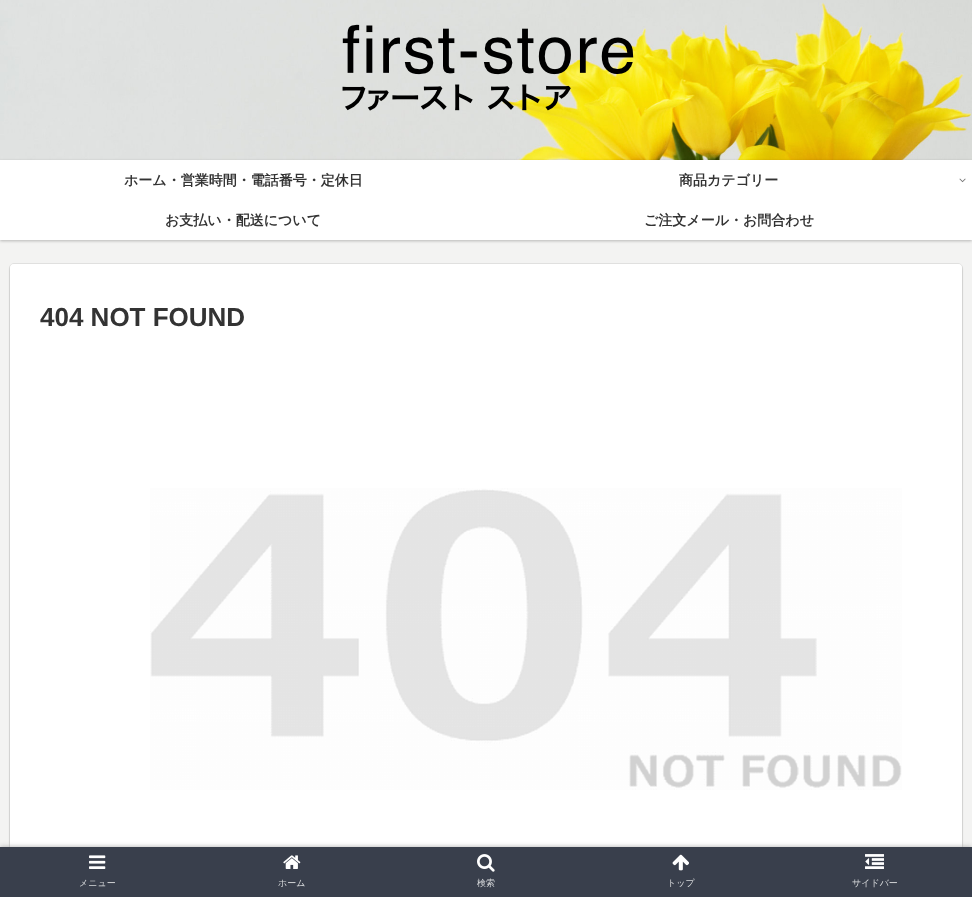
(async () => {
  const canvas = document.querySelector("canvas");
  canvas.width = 972;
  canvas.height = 897;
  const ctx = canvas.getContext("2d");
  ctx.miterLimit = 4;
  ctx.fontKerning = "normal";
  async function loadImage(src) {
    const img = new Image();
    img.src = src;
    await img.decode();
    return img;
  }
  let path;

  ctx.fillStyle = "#f3f3f2";
  ctx.fillRect(0, 0, 972, 897);
  ctx.fillStyle = "#ffffff";
  ctx.fillRect(0, 160, 972, 80);
  ctx.drawImage(await loadImage("img/1.png"), 0, 0, 972, 160);
  ctx.drawImage(await loadImage("img/2.png"), 342, 24, 292, 87);
  ctx.save();
  path = new Path2D("M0 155H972V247H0ZM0 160H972V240H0Z");
  ctx.clip(path, "evenodd");
  ctx.fillStyle = "rgba(0, 0, 0, 0.25)";
  ctx.filter = "blur(1.5px)";
  ctx.beginPath();
  ctx.rect(0, 161, 972, 80);
  ctx.fill();
  ctx.filter = "none";
  ctx.restore();
  ctx.drawImage(await loadImage("img/3.png"), 959, 178, 7, 5);
  ctx.beginPath();
  ctx.roundRect(9.5, 263.5, 953, 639, 4.5);
  ctx.strokeStyle = "#e0e0df";
  ctx.stroke();
  ctx.fillStyle = "rgba(0, 0, 0, 0.16)";
  ctx.filter = "blur(1px)";
  ctx.beginPath();
  ctx.roundRect(10, 266, 952, 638, 4);
  ctx.fill();
  ctx.filter = "none";
  ctx.fillStyle = "#ffffff";
  ctx.beginPath();
  ctx.roundRect(10, 264, 952, 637, 4);
  ctx.fill();
  ctx.drawImage(await loadImage("img/4.png"), 150, 488, 752, 302);
  ctx.fillStyle = "#a9a9a9";
  ctx.filter = "blur(2.5px)";
  ctx.beginPath();
  ctx.rect(0, 847, 972, 50);
  ctx.fill();
  ctx.filter = "none";
  ctx.fillStyle = "#393f4c";
  ctx.fillRect(0, 847, 972, 50);
  ctx.drawImage(await loadImage("img/5.png"), 89, 855, 17, 14);
  ctx.drawImage(await loadImage("img/6.png"), 283, 855, 18, 14);
  ctx.drawImage(await loadImage("img/7.png"), 477, 854, 18, 18);
  ctx.drawImage(await loadImage("img/8.png"), 672, 854, 17, 17);
  ctx.drawImage(await loadImage("img/9.png"), 865, 854, 19, 15);
  ctx.font = "bold 14px WenQuanYi Zen Hei";
  ctx.fillStyle = "#333333";
  for (const [text, x, y] of [
    ["ホーム・営業時間・電話番号・定休日", 124, 185],
    ["商品カテゴリー", 679, 185],
    ["お支払い・配送について", 165, 225],
    ["ご注文メール・お問合わせ", 644, 225],
  ]) {
    ctx.fillText(text, x, y);
  }
  ctx.font = "bold 26px Liberation Sans";
  ctx.fillText("404 NOT FOUND", 40, 326);
  ctx.font = "500 9px WenQuanYi Zen Hei";
  ctx.fillStyle = "#d7d9db";
  for (const [text, x, y] of [
    ["メニュー", 79, 886],
    ["ホーム", 278, 886],
    ["検索", 477, 886],
    ["トップ", 667, 886],
    ["サイドバー", 852, 886],
  ]) {
    ctx.fillText(text, x, y);
  }
})();
